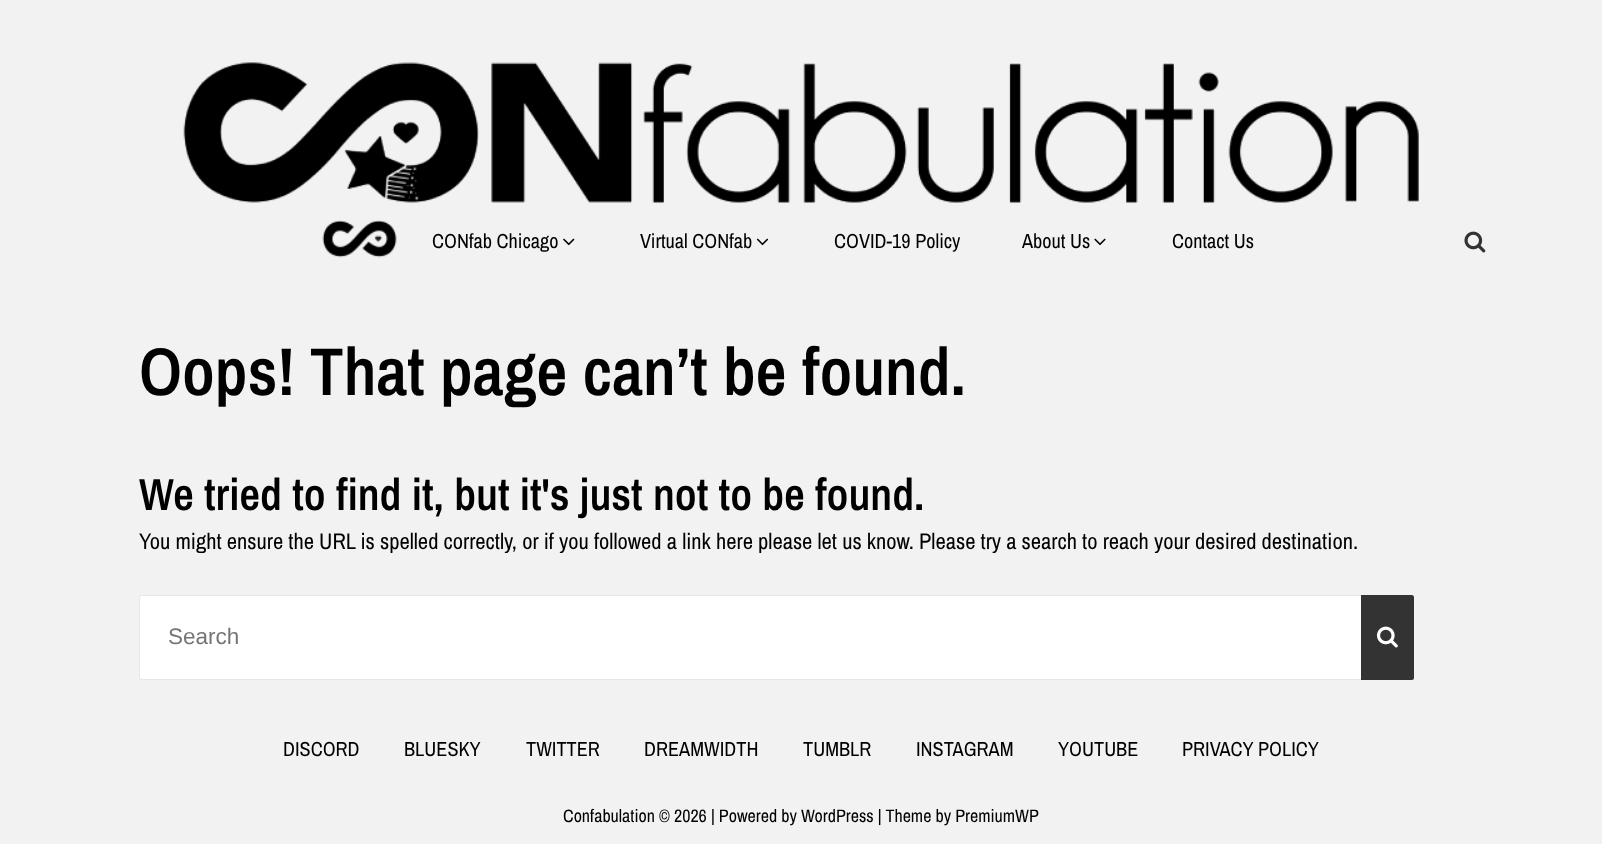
(async () => {
  const canvas = document.querySelector("canvas");
  canvas.width = 1602;
  canvas.height = 844;
  const ctx = canvas.getContext("2d");
  ctx.miterLimit = 4;
  ctx.fontKerning = "normal";
  async function loadImage(src) {
    const img = new Image();
    img.src = src;
    await img.decode();
    return img;
  }

  ctx.fillStyle = "#f2f2f2";
  ctx.fillRect(0, 0, 1602, 844);
  ctx.drawImage(await loadImage("img/1.png"), 183, 62, 1236, 141);
  ctx.drawImage(await loadImage("img/2.png"), 322, 220, 75, 38);
  ctx.drawImage(await loadImage("img/3.png"), 563, 238, 12, 8);
  ctx.drawImage(await loadImage("img/4.png"), 756, 238, 13, 8);
  ctx.drawImage(await loadImage("img/5.png"), 1094, 238, 12, 8);
  ctx.drawImage(await loadImage("img/6.png"), 1464, 231, 22, 22);
  ctx.fillStyle = "#ffffff";
  ctx.beginPath();
  ctx.roundRect(139.5, 595.5, 1274, 84, [2, 0, 0, 2]);
  ctx.fill();
  ctx.strokeStyle = "#e6e6e6";
  ctx.stroke();
  ctx.fillStyle = "#333333";
  ctx.beginPath();
  ctx.roundRect(1361, 595, 53, 85, [0, 2.5, 2.5, 0]);
  ctx.fill();
  ctx.drawImage(await loadImage("img/7.png"), 1376, 626, 22, 22);
  ctx.font = "20.25px Archivo Narrow";
  ctx.fillStyle = "#000000";
  for (const [text, x, y] of [
    ["CONfab Chicago", 432, 248],
    ["Virtual CONfab", 640, 248],
    ["COVID-19 Policy", 834, 248],
    ["About Us", 1022, 248],
    ["Contact Us", 1172, 248],
  ]) {
    ctx.fillText(text, x, y);
  }
  ctx.font = "600 67.5px Archivo Narrow";
  ctx.fillText("Oops! That page can’t be found.", 139, 395);
  ctx.font = "600 45px Archivo Narrow";
  ctx.fillText("We tried to find it, but it's just not to be found.", 139, 510);
  ctx.font = "22.5px Archivo Narrow";
  ctx.fillText("You might ensure the URL is spelled correctly, or if you followed a link here please let us know. Please try a search to reach your desired destination.", 139, 549);
  ctx.font = "22.5px Liberation Sans";
  ctx.fillStyle = "#757575";
  ctx.fillText("Search", 168, 644);
  ctx.font = "20.25px Archivo Narrow";
  ctx.fillStyle = "#000000";
  for (const [text, x, y] of [
    ["DISCORD", 283, 756],
    ["BLUESKY", 404, 756],
    ["TWITTER", 526, 756],
    ["DREAMWIDTH", 644, 756],
    ["TUMBLR", 803, 756],
    ["INSTAGRAM", 916, 756],
    ["YOUTUBE", 1058, 756],
    ["PRIVACY POLICY", 1182, 756],
  ]) {
    ctx.fillText(text, x, y);
  }
  ctx.font = "18px Archivo Narrow";
  ctx.fillText("Confabulation © 2026 | Powered by WordPress | Theme by PremiumWP", 563, 822);
})();
